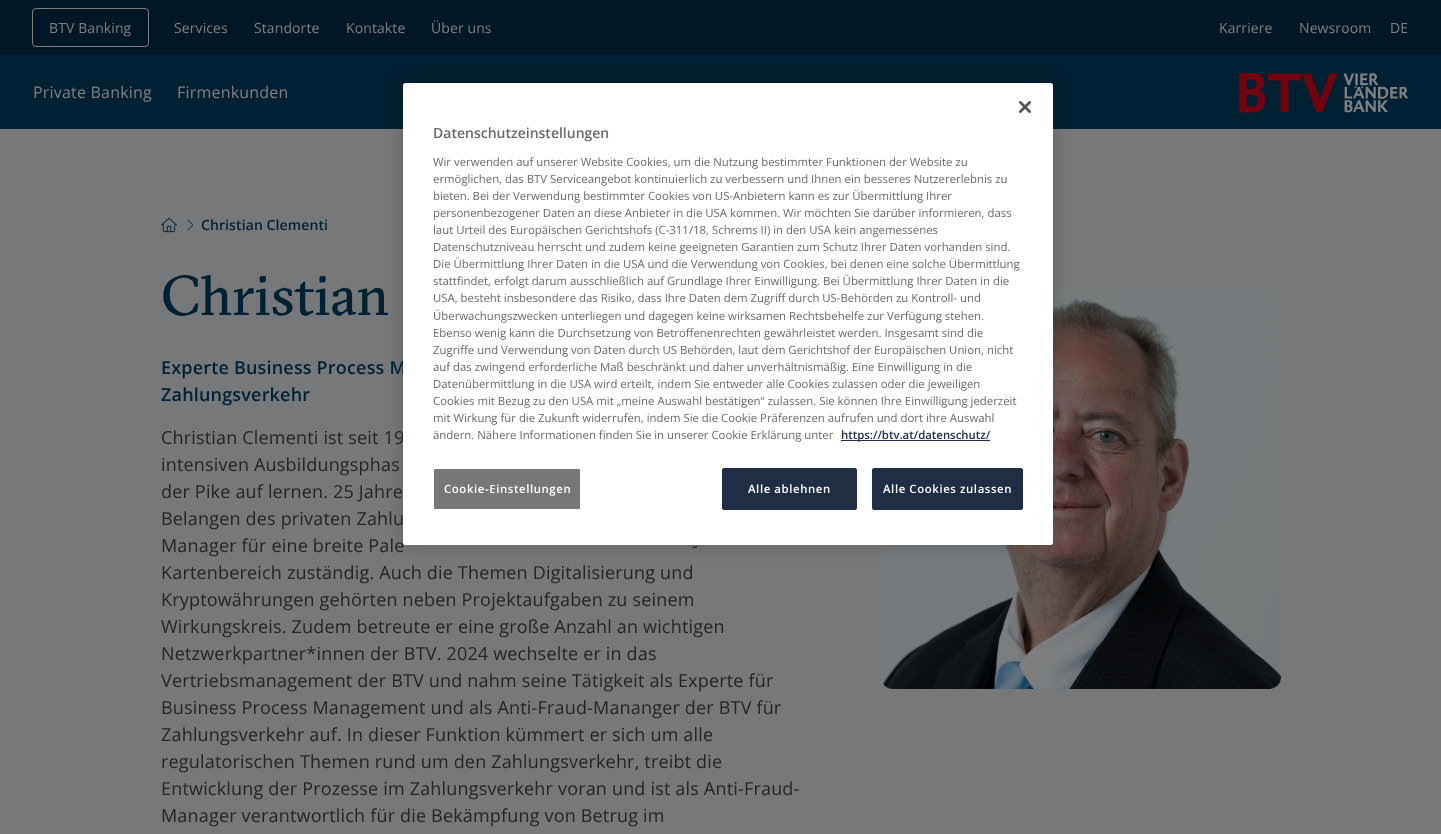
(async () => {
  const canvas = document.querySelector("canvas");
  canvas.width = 1441;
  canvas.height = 834;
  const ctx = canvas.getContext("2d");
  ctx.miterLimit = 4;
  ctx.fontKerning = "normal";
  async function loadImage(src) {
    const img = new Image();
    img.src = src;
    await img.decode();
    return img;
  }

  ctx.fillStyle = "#767879";
  ctx.fillRect(0, 0, 1441, 834);
  ctx.fillStyle = "#001725";
  ctx.fillRect(0, 0, 1441, 55);
  ctx.beginPath();
  ctx.roundRect(32.5, 8.5, 116, 38, 3.5);
  ctx.strokeStyle = "#808080";
  ctx.stroke();
  ctx.fillStyle = "#002133";
  ctx.fillRect(0, 55, 1441, 74);
  ctx.drawImage(await loadImage("img/1.png"), 1239, 72, 170, 41);
  ctx.drawImage(await loadImage("img/2.png"), 161, 218, 16, 15);
  ctx.drawImage(await loadImage("img/3.png"), 187, 219, 6, 12);
  ctx.drawImage(await loadImage("img/4.png"), 881, 289, 400, 400);
  ctx.fillStyle = "rgba(0, 0, 0, 0.2)";
  ctx.filter = "blur(9px)";
  ctx.beginPath();
  ctx.roundRect(403, 83, 650, 462, 2.5);
  ctx.fill();
  ctx.filter = "none";
  ctx.letterSpacing = "0.1px";
  ctx.font = "14px Open Sans";
  ctx.fillStyle = "#808080";
  for (const [text, x, y] of [
    ["BTV Banking", 49, 33],
    ["Services", 174, 33],
    ["Standorte", 254, 33],
    ["Kontakte", 346, 33],
    ["Über uns", 431, 33],
    ["Karriere", 1219, 33],
    ["Newsroom", 1299, 33],
    ["DE", 1390, 33],
  ]) {
    ctx.fillText(text, x, y);
  }
  ctx.letterSpacing = "0.2px";
  ctx.font = "16px Open Sans";
  ctx.fillText("Private Banking", 33, 98);
  ctx.fillText("Firmenkunden", 177, 98);
  ctx.letterSpacing = "0.1px";
  ctx.font = "600 14px Open Sans";
  ctx.fillStyle = "#002133";
  ctx.fillText("Christian Clementi", 201, 230);
  ctx.letterSpacing = "0px";
  ctx.font = "56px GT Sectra";
  ctx.fillText("Christian", 161, 315);
  ctx.letterSpacing = "0.18px";
  ctx.font = "600 18px Open Sans";
  ctx.fillText("Experte Business Process M", 161, 374);
  ctx.fillText("Zahlungsverkehr", 161, 401);
  ctx.font = "18px Open Sans";
  ctx.fillStyle = "#252525";
  for (const [text, x, y] of [
    ["Christian Clementi ist seit 19", 161, 444],
    ["intensiven Ausbildungsphas", 161, 471],
    ["der Pike auf lernen. 25 Jahre", 161, 498],
    ["Belangen des privaten Zahlu", 161, 525],
    ["Manager für eine breite Pale", 161, 552],
    ["-", 692, 552],
    ["Kartenbereich zuständig. Auch die Themen Digitalisierung und", 161, 579],
    ["Kryptowährungen gehörten neben Projektaufgaben zu seinem", 161, 606],
    ["Wirkungskreis. Zudem betreute er eine große Anzahl an wichtigen", 161, 633],
    ["Netzwerkpartner*innen der BTV. 2024 wechselte er in das", 161, 660],
    ["Vertriebsmanagement der BTV und nahm seine Tätigkeit als Experte für", 161, 687],
    ["Business Process Management und als Anti-Fraud-Mananger der BTV für", 161, 714],
    ["Zahlungsverkehr auf. In dieser Funktion kümmert er sich um alle", 161, 741],
    ["regulatorischen Themen rund um den Zahlungsverkehr, treibt die", 161, 768],
    ["Entwicklung der Prozesse im Zahlungsverkehr voran und ist als Anti-Fraud-", 161, 795],
    ["Manager verantwortlich für die Bekämpfung von Betrug im", 161, 822],
  ]) {
    ctx.fillText(text, x, y);
  }
  ctx.fillStyle = "#ffffff";
  ctx.beginPath();
  ctx.roundRect(403, 83, 650, 462, 2.5);
  ctx.fill();
  ctx.drawImage(await loadImage("img/5.png"), 1019, 101, 12, 12);
  ctx.letterSpacing = "0px";
  ctx.font = "600 14px Open Sans";
  ctx.fillStyle = "#696969";
  ctx.fillText("Datenschutzeinstellungen", 433, 138);
  ctx.font = "11.38px Open Sans";
  for (const [text, x, y] of [
    ["Wir verwenden auf unserer Website Cookies, um die Nutzung bestimmter Funktionen der Website zu", 433, 166],
    ["ermöglichen, das BTV Serviceangebot kontinuierlich zu verbessern und Ihnen ein besseres Nutzererlebnis zu", 433, 183],
    ["bieten. Bei der Verwendung bestimmter Cookies von US-Anbietern kann es zur Übermittlung Ihrer", 433, 200],
    ["personenbezogener Daten an diese Anbieter in die USA kommen. Wir möchten Sie darüber informieren, dass", 433, 217],
    ["laut Urteil des Europäischen Gerichtshofs (C-311/18, Schrems II) in den USA kein angemessenes", 433, 234],
    ["Datenschutzniveau herrscht und zudem keine geeigneten Garantien zum Schutz Ihrer Daten vorhanden sind.", 433, 251],
    ["Die Übermittlung Ihrer Daten in die USA und die Verwendung von Cookies, bei denen eine solche Übermittlung", 433, 268],
    ["stattfindet, erfolgt darum ausschließlich auf Grundlage Ihrer Einwilligung. Bei Übermittlung Ihrer Daten in die", 433, 285],
    ["USA, besteht insbesondere das Risiko, dass Ihre Daten dem Zugriff durch US-Behörden zu Kontroll- und", 433, 302],
    ["Überwachungszwecken unterliegen und dagegen keine wirksamen Rechtsbehelfe zur Verfügung stehen.", 433, 320],
    ["Ebenso wenig kann die Durchsetzung von Betroffenenrechten gewährleistet werden. Insgesamt sind die", 433, 337],
    ["Zugriffe und Verwendung von Daten durch US Behörden, laut dem Gerichtshof der Europäischen Union, nicht", 433, 354],
    ["auf das zwingend erforderliche Maß beschränkt und daher unverhältnismäßig. Eine Einwilligung in die", 433, 371],
    ["Datenübermittlung in die USA wird erteilt, indem Sie entweder alle Cookies zulassen oder die jeweiligen", 433, 388],
    ["Cookies mit Bezug zu den USA mit „meine Auswahl bestätigen“ zulassen. Sie können Ihre Einwilligung jederzeit", 433, 405],
    ["mit Wirkung für die Zukunft widerrufen, indem Sie die Cookie Präferenzen aufrufen und dort ihre Auswahl", 433, 422],
    ["ändern. Nähere Informationen finden Sie in unserer Cookie Erklärung unter", 433, 439],
  ]) {
    ctx.fillText(text, x, y);
  }
  ctx.fillStyle = "#202e45";
  ctx.fillRect(841, 440, 149, 1);
  ctx.font = "600 11.38px Open Sans";
  ctx.fillText("https://btv.at/datenschutz/", 841, 439);
  ctx.fillStyle = "#777777";
  ctx.beginPath();
  ctx.roundRect(433.5, 468.5, 147, 41, 1.5);
  ctx.fill();
  ctx.strokeStyle = "#ffffff";
  ctx.stroke();
  ctx.letterSpacing = "0.6px";
  ctx.fillStyle = "#ffffff";
  ctx.fillText("Cookie-Einstellungen", 444, 493);
  ctx.fillStyle = "#202e45";
  ctx.beginPath();
  ctx.roundRect(722.5, 468.5, 134, 41, 1.5);
  ctx.fill();
  ctx.strokeStyle = "#202e45";
  ctx.stroke();
  ctx.fillStyle = "#ffffff";
  ctx.fillText("Alle ablehnen", 748, 493);
  ctx.fillStyle = "#202e45";
  ctx.beginPath();
  ctx.roundRect(872.5, 468.5, 150, 41, 1.5);
  ctx.fill();
  ctx.stroke();
  ctx.fillStyle = "#ffffff";
  ctx.fillText("Alle Cookies zulassen", 883, 493);
})();
